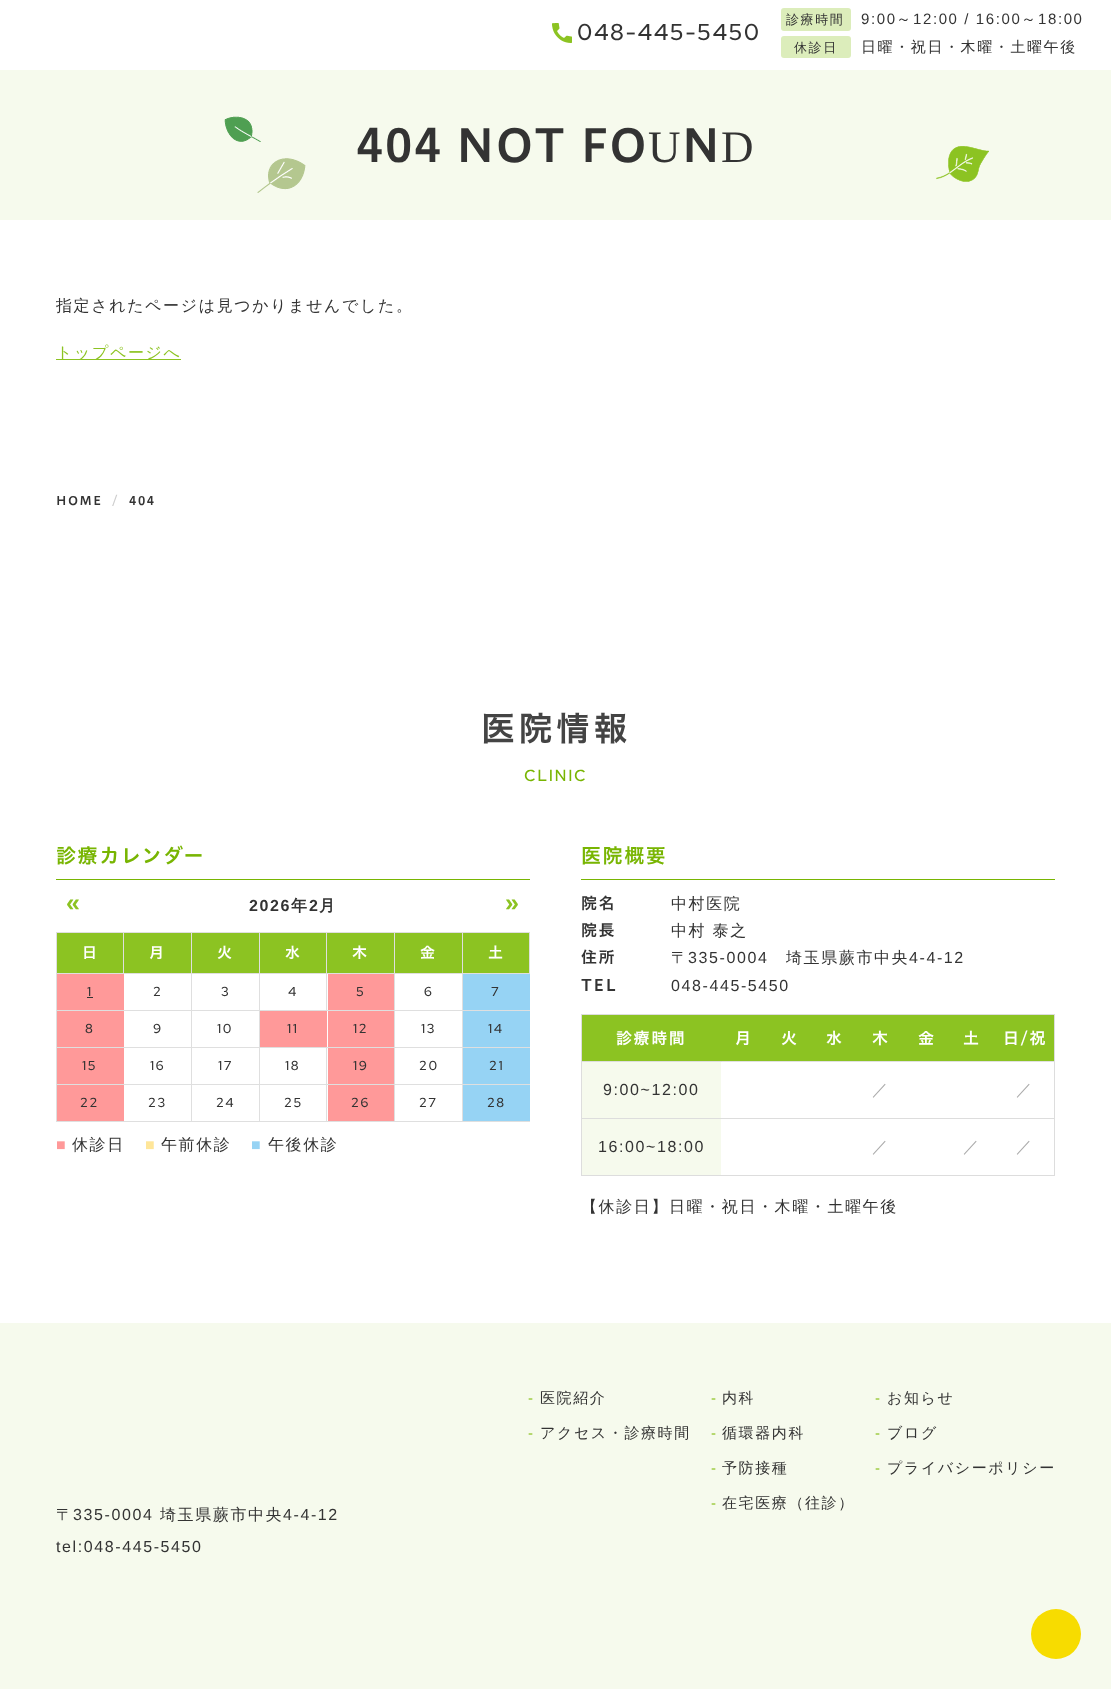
(async () => {
  const canvas = document.querySelector("canvas");
  canvas.width = 1111;
  canvas.height = 1689;
  const ctx = canvas.getContext("2d");
  ctx.miterLimit = 4;
  ctx.fontKerning = "normal";
  async function loadImage(src) {
    const img = new Image();
    img.src = src;
    await img.decode();
    return img;
  }

  ctx.fillStyle = "#ffffff";
  ctx.fillRect(0, 0, 1111, 1689);
  ctx.drawImage(await loadImage("img/1.png"), 552, 23, 20, 20);
  ctx.fillStyle = "#dcedbb";
  ctx.beginPath();
  ctx.roundRect(781, 8, 70, 23, 3);
  ctx.fill();
  ctx.beginPath();
  ctx.roundRect(781, 36, 70, 22, 3);
  ctx.fill();
  ctx.fillStyle = "#f6faed";
  ctx.fillRect(0, 70, 1111, 150);
  ctx.drawImage(await loadImage("img/2.png"), 224, 116, 765, 77);
  for (const [x, y, w, h, color] of [
    [56, 359, 125, 1, "#8cc322"],
    [0, 1323, 1111, 366, "#f6faed"],
    [56, 879, 474, 1, "#78b502"],
    [57, 933, 66, 40, "#8cc322"],
    [462, 932, 68, 1, "#dfdfdf"],
    [462, 973, 68, 1, "#dfdfdf"],
    [462, 1010, 68, 1, "#dfdfdf"],
    [462, 1047, 68, 1, "#dfdfdf"],
    [462, 1084, 68, 1, "#dfdfdf"],
    [462, 1121, 68, 1, "#dfdfdf"],
    [462, 1084, 1, 38, "#dfdfdf"],
    [394, 1084, 69, 1, "#dfdfdf"],
    [462, 1047, 1, 38, "#dfdfdf"],
    [394, 1047, 69, 1, "#dfdfdf"],
    [462, 1010, 1, 38, "#dfdfdf"],
    [394, 1010, 69, 1, "#dfdfdf"],
    [462, 973, 1, 38, "#dfdfdf"],
    [394, 973, 69, 1, "#dfdfdf"],
    [462, 932, 1, 42, "#dfdfdf"],
    [394, 932, 69, 1, "#dfdfdf"],
    [394, 1121, 69, 1, "#dfdfdf"],
    [394, 1084, 1, 38, "#dfdfdf"],
    [326, 1084, 69, 1, "#dfdfdf"],
    [394, 1047, 1, 38, "#dfdfdf"],
    [326, 1047, 69, 1, "#dfdfdf"],
    [394, 1010, 1, 38, "#dfdfdf"],
    [259, 1010, 136, 1, "#dfdfdf"],
    [394, 973, 1, 38, "#dfdfdf"],
    [326, 973, 69, 1, "#dfdfdf"],
    [394, 932, 1, 42, "#dfdfdf"],
    [326, 932, 69, 1, "#dfdfdf"],
    [326, 973, 1, 38, "#dfdfdf"],
    [259, 973, 68, 1, "#dfdfdf"],
    [326, 932, 1, 42, "#dfdfdf"],
    [259, 932, 68, 1, "#dfdfdf"],
    [326, 1121, 69, 1, "#dfdfdf"],
    [326, 1084, 1, 38, "#dfdfdf"],
    [259, 1084, 68, 1, "#dfdfdf"],
    [326, 1047, 1, 38, "#dfdfdf"],
    [259, 1047, 68, 1, "#dfdfdf"],
    [259, 1121, 68, 1, "#dfdfdf"],
    [259, 1084, 1, 38, "#dfdfdf"],
    [191, 1084, 69, 1, "#dfdfdf"],
    [259, 1047, 1, 38, "#dfdfdf"],
    [191, 1047, 69, 1, "#dfdfdf"],
    [259, 1010, 1, 38, "#dfdfdf"],
    [191, 1010, 69, 1, "#dfdfdf"],
    [259, 973, 1, 38, "#dfdfdf"],
    [191, 973, 69, 1, "#dfdfdf"],
    [259, 932, 1, 42, "#dfdfdf"],
    [191, 932, 69, 1, "#dfdfdf"],
    [191, 1121, 69, 1, "#dfdfdf"],
    [191, 1084, 1, 38, "#dfdfdf"],
    [56, 1084, 136, 1, "#dfdfdf"],
    [191, 1047, 1, 38, "#dfdfdf"],
    [56, 1047, 136, 1, "#dfdfdf"],
    [191, 1010, 1, 38, "#dfdfdf"],
    [56, 1010, 136, 1, "#dfdfdf"],
    [191, 973, 1, 38, "#dfdfdf"],
    [56, 973, 136, 1, "#dfdfdf"],
    [191, 932, 1, 42, "#dfdfdf"],
    [123, 932, 69, 1, "#dfdfdf"],
    [123, 932, 1, 42, "#dfdfdf"],
    [56, 932, 68, 1, "#dfdfdf"],
    [56, 1121, 136, 1, "#dfdfdf"],
    [56, 1084, 1, 38, "#dfdfdf"],
    [56, 1047, 1, 38, "#dfdfdf"],
    [56, 1010, 1, 38, "#dfdfdf"],
    [56, 973, 1, 38, "#dfdfdf"],
    [56, 932, 1, 42, "#dfdfdf"],
    [124, 933, 67, 40, "#8cc322"],
    [192, 933, 67, 40, "#8cc322"],
    [260, 933, 66, 40, "#8cc322"],
    [327, 933, 67, 40, "#8cc322"],
    [395, 933, 67, 40, "#8cc322"],
    [463, 933, 66, 40, "#8cc322"],
    [529, 932, 1, 42, "#dfdfdf"],
    [57, 974, 67, 36, "#ff9999"],
    [87, 997, 6, 1, "#333333"],
    [328, 974, 66, 36, "#ff9999"],
    [463, 974, 67, 36, "#96d3f4"],
    [57, 1011, 67, 36, "#ff9999"],
    [260, 1011, 67, 36, "#ff9999"],
    [328, 1011, 66, 36, "#ff9999"],
    [463, 1011, 67, 36, "#96d3f4"],
    [57, 1048, 67, 36, "#ff9999"],
    [328, 1048, 66, 36, "#ff9999"],
    [463, 1048, 67, 36, "#96d3f4"],
    [57, 1085, 67, 36, "#ff9999"],
    [328, 1085, 66, 36, "#ff9999"],
    [463, 1085, 67, 36, "#96d3f4"],
    [581, 879, 474, 1, "#78b502"],
    [581, 1014, 474, 1, "#dddddd"],
    [1054, 1014, 1, 162, "#dddddd"],
    [581, 1175, 474, 1, "#dddddd"],
    [581, 1014, 1, 162, "#dddddd"],
    [582, 1015, 472, 46, "#8cc322"],
    [721, 1061, 334, 1, "#e1e1e1"],
    [581, 1061, 141, 1, "#dddddd"],
    [582, 1062, 139, 56, "#f6faed"],
    [581, 1118, 474, 1, "#dddddd"],
    [582, 1119, 139, 56, "#f6faed"],
  ]) {
    ctx.fillStyle = color;
    ctx.fillRect(x, y, w, h);
  }
  ctx.fillStyle = "#f7dc00";
  ctx.beginPath();
  ctx.arc(1056, 1634, 25, 0, Math.PI * 2);
  ctx.fill();
  ctx.letterSpacing = "1.6px";
  ctx.font = "500 23px Red Hat Text";
  ctx.fillStyle = "#333333";
  ctx.fillText("048-445-5450", 577, 40);
  ctx.font = "500 13px WenQuanYi Zen Hei";
  ctx.fillText("診療時間", 786, 24);
  ctx.font = "15px Liberation Sans";
  ctx.fillText("9:00", 861, 24);
  ctx.font = "500 15px WenQuanYi Zen Hei";
  ctx.fillText("～", 896, 24);
  ctx.font = "15px Liberation Sans";
  ctx.fillText("12:00 / 16:00", 913, 24);
  ctx.font = "500 15px WenQuanYi Zen Hei";
  ctx.fillText("～", 1021, 24);
  ctx.font = "15px Liberation Sans";
  ctx.fillText("18:00", 1038, 24);
  ctx.font = "500 13px WenQuanYi Zen Hei";
  ctx.fillText("休診日", 794, 52);
  ctx.font = "500 15px WenQuanYi Zen Hei";
  ctx.fillText("日曜・祝日・木曜・土曜午後", 861, 52);
  ctx.font = "600 45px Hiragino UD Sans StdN";
  ctx.fillText("404 NOT FO", 356, 162);
  ctx.font = "45px Liberation Serif";
  ctx.fillText("U", 648, 162);
  ctx.font = "600 45px Hiragino UD Sans StdN";
  ctx.fillText("N", 682, 162);
  ctx.font = "45px Liberation Serif";
  ctx.fillText("D", 721, 162);
  ctx.font = "500 16px WenQuanYi Zen Hei";
  ctx.fillText("指定されたページは見つかりませんでした。", 56, 311);
  ctx.fillStyle = "#8cc322";
  ctx.fillText("トップページへ", 56, 358);
  ctx.font = "600 12px Hiragino UD Sans StdN";
  ctx.fillStyle = "#333333";
  ctx.fillText("HOME", 56, 505);
  ctx.fillStyle = "#cccccc";
  ctx.fillText("/", 112, 505);
  ctx.fillStyle = "#333333";
  ctx.fillText("404", 129, 505);
  ctx.letterSpacing = "3.5px";
  ctx.font = "600 34px Hiragino UD Sans StdN";
  ctx.fillStyle = "#444444";
  ctx.fillText("医院情報", 481, 741);
  ctx.letterSpacing = "1.6px";
  ctx.font = "500 16px Red Hat Text";
  ctx.fillStyle = "#78b502";
  ctx.fillText("CLINIC", 524, 781);
  ctx.font = "600 20px Hiragino UD Sans StdN";
  ctx.fillText("診療カレンダー", 56, 863);
  ctx.font = "bold 25px Liberation Sans";
  ctx.fillStyle = "#8cc322";
  ctx.fillText("«", 66, 911);
  ctx.font = "bold 16px Liberation Sans";
  ctx.fillStyle = "#333333";
  ctx.fillText("2026", 249, 911);
  ctx.font = "bold 16px WenQuanYi Zen Hei";
  ctx.fillText("年", 291, 911);
  ctx.font = "bold 16px Liberation Sans";
  ctx.fillText("2", 309, 911);
  ctx.font = "bold 16px WenQuanYi Zen Hei";
  ctx.fillText("月", 319, 911);
  ctx.font = "bold 25px Liberation Sans";
  ctx.fillStyle = "#8cc322";
  ctx.fillText("»", 505, 911);
  ctx.font = "600 15px Hiragino UD Sans StdN";
  ctx.fillStyle = "#ffffff";
  for (const [text, x, y] of [
    ["日", 82, 958],
    ["月", 149, 958],
    ["火", 217, 958],
    ["水", 285, 958],
    ["木", 352, 958],
    ["金", 420, 958],
    ["土", 488, 958],
  ]) {
    ctx.fillText(text, x, y);
  }
  ctx.font = "500 13px Red Hat Text";
  ctx.fillStyle = "#333333";
  for (const [text, x, y] of [
    ["1", 87, 996],
    ["2", 153, 996],
    ["3", 221, 996],
    ["4", 288, 996],
    ["5", 356, 996],
    ["6", 424, 996],
    ["7", 491, 996],
    ["8", 85, 1033],
    ["9", 153, 1033],
    ["10", 217, 1033],
    ["11", 287, 1033],
    ["12", 353, 1033],
    ["13", 421, 1033],
    ["14", 488, 1033],
    ["15", 82, 1070],
    ["16", 150, 1070],
    ["17", 218, 1070],
    ["18", 285, 1070],
    ["19", 353, 1070],
    ["20", 419, 1070],
    ["21", 489, 1070],
    ["22", 80, 1107],
    ["23", 148, 1107],
    ["24", 216, 1107],
    ["25", 284, 1107],
    ["26", 351, 1107],
    ["27", 419, 1107],
    ["28", 487, 1107],
  ]) {
    ctx.fillText(text, x, y);
  }
  ctx.font = "16px Liberation Sans";
  ctx.fillStyle = "#ff9999";
  ctx.fillText("■", 56, 1150);
  ctx.font = "500 16px WenQuanYi Zen Hei";
  ctx.fillStyle = "#333333";
  ctx.fillText("休診日", 72, 1150);
  ctx.font = "16px Liberation Sans";
  ctx.fillStyle = "#ffe699";
  ctx.fillText("■", 145, 1150);
  ctx.font = "500 16px WenQuanYi Zen Hei";
  ctx.fillStyle = "#333333";
  ctx.fillText("午前休診", 161, 1150);
  ctx.font = "16px Liberation Sans";
  ctx.fillStyle = "#96d3f4";
  ctx.fillText("■", 251, 1150);
  ctx.font = "500 16px WenQuanYi Zen Hei";
  ctx.fillStyle = "#333333";
  ctx.fillText("午後休診", 268, 1150);
  ctx.font = "600 20px Hiragino UD Sans StdN";
  ctx.fillStyle = "#78b502";
  ctx.fillText("医院概要", 581, 863);
  ctx.font = "600 16px Hiragino UD Sans StdN";
  ctx.fillStyle = "#333333";
  ctx.fillText("院名", 581, 909);
  ctx.font = "500 16px WenQuanYi Zen Hei";
  ctx.fillText("中村医院", 671, 909);
  ctx.font = "600 16px Hiragino UD Sans StdN";
  ctx.fillText("院長", 581, 936);
  ctx.font = "500 16px WenQuanYi Zen Hei";
  ctx.fillText("中村 泰之", 671, 936);
  ctx.font = "600 16px Hiragino UD Sans StdN";
  ctx.fillText("住所", 581, 963);
  ctx.font = "500 16px WenQuanYi Zen Hei";
  ctx.fillText("〒", 671, 963);
  ctx.font = "16px Liberation Sans";
  ctx.fillText("335-0004", 688, 963);
  ctx.font = "500 16px WenQuanYi Zen Hei";
  ctx.fillText("埼玉県蕨市中央", 786, 963);
  ctx.font = "16px Liberation Sans";
  ctx.fillText("4-4-12", 909, 963);
  ctx.font = "600 16px Hiragino UD Sans StdN";
  ctx.fillText("TEL", 581, 991);
  ctx.font = "16px Liberation Sans";
  ctx.fillText("048-445-5450", 671, 991);
  ctx.font = "600 16px Hiragino UD Sans StdN";
  ctx.fillStyle = "#ffffff";
  for (const [text, x, y] of [
    ["診療時間", 616, 1044],
    ["月", 735, 1044],
    ["火", 781, 1044],
    ["水", 826, 1044],
    ["木", 872, 1044],
    ["金", 918, 1044],
    ["土", 963, 1044],
    ["日/祝", 1003, 1044],
  ]) {
    ctx.fillText(text, x, y);
  }
  ctx.font = "16px Liberation Sans";
  ctx.fillStyle = "#333333";
  ctx.fillText("9:00~12:00", 603, 1095);
  ctx.font = "500 16px WenQuanYi Zen Hei";
  ctx.fillStyle = "#aaaaaa";
  ctx.fillText("／", 872, 1095);
  ctx.fillText("／", 1016, 1095);
  ctx.font = "16px Liberation Sans";
  ctx.fillStyle = "#333333";
  ctx.fillText("16:00~18:00", 598, 1152);
  ctx.font = "500 16px WenQuanYi Zen Hei";
  ctx.fillStyle = "#aaaaaa";
  for (const [text, x, y] of [
    ["／", 872, 1152],
    ["／", 963, 1152],
    ["／", 1016, 1152],
  ]) {
    ctx.fillText(text, x, y);
  }
  ctx.fillStyle = "#333333";
  ctx.fillText("【休診日】日曜・祝日・木曜・土曜午後", 581, 1212);
  ctx.font = "15px Liberation Sans";
  ctx.fillStyle = "#8cc322";
  ctx.fillText("-", 528, 1403);
  ctx.font = "500 15px WenQuanYi Zen Hei";
  ctx.fillStyle = "#333333";
  ctx.fillText("医院紹介", 540, 1403);
  ctx.font = "15px Liberation Sans";
  ctx.fillStyle = "#8cc322";
  ctx.fillText("-", 528, 1438);
  ctx.font = "500 15px WenQuanYi Zen Hei";
  ctx.fillStyle = "#333333";
  ctx.fillText("アクセス・診療時間", 540, 1438);
  ctx.font = "15px Liberation Sans";
  ctx.fillStyle = "#8cc322";
  ctx.fillText("-", 711, 1403);
  ctx.font = "500 15px WenQuanYi Zen Hei";
  ctx.fillStyle = "#333333";
  ctx.fillText("内科", 722, 1403);
  ctx.font = "15px Liberation Sans";
  ctx.fillStyle = "#8cc322";
  ctx.fillText("-", 711, 1438);
  ctx.font = "500 15px WenQuanYi Zen Hei";
  ctx.fillStyle = "#333333";
  ctx.fillText("循環器内科", 722, 1438);
  ctx.font = "15px Liberation Sans";
  ctx.fillStyle = "#8cc322";
  ctx.fillText("-", 711, 1473);
  ctx.font = "500 15px WenQuanYi Zen Hei";
  ctx.fillStyle = "#333333";
  ctx.fillText("予防接種", 722, 1473);
  ctx.font = "15px Liberation Sans";
  ctx.fillStyle = "#8cc322";
  ctx.fillText("-", 711, 1508);
  ctx.font = "500 15px WenQuanYi Zen Hei";
  ctx.fillStyle = "#333333";
  ctx.fillText("在宅医療（往診）", 722, 1508);
  ctx.font = "15px Liberation Sans";
  ctx.fillStyle = "#8cc322";
  ctx.fillText("-", 875, 1403);
  ctx.font = "500 15px WenQuanYi Zen Hei";
  ctx.fillStyle = "#333333";
  ctx.fillText("お知らせ", 887, 1403);
  ctx.font = "15px Liberation Sans";
  ctx.fillStyle = "#8cc322";
  ctx.fillText("-", 875, 1438);
  ctx.font = "500 15px WenQuanYi Zen Hei";
  ctx.fillStyle = "#333333";
  ctx.fillText("ブログ", 887, 1438);
  ctx.font = "15px Liberation Sans";
  ctx.fillStyle = "#8cc322";
  ctx.fillText("-", 875, 1473);
  ctx.font = "500 15px WenQuanYi Zen Hei";
  ctx.fillStyle = "#333333";
  ctx.fillText("プライバシーポリシー", 887, 1473);
  ctx.font = "500 16px WenQuanYi Zen Hei";
  ctx.fillText("〒", 56, 1520);
  ctx.font = "16px Liberation Sans";
  ctx.fillText("335-0004", 73, 1520);
  ctx.font = "500 16px WenQuanYi Zen Hei";
  ctx.fillText("埼玉県蕨市中央", 160, 1520);
  ctx.font = "16px Liberation Sans";
  ctx.fillText("4-4-12", 283, 1520);
  ctx.fillText("tel:048-445-5450", 56, 1552);
})();
